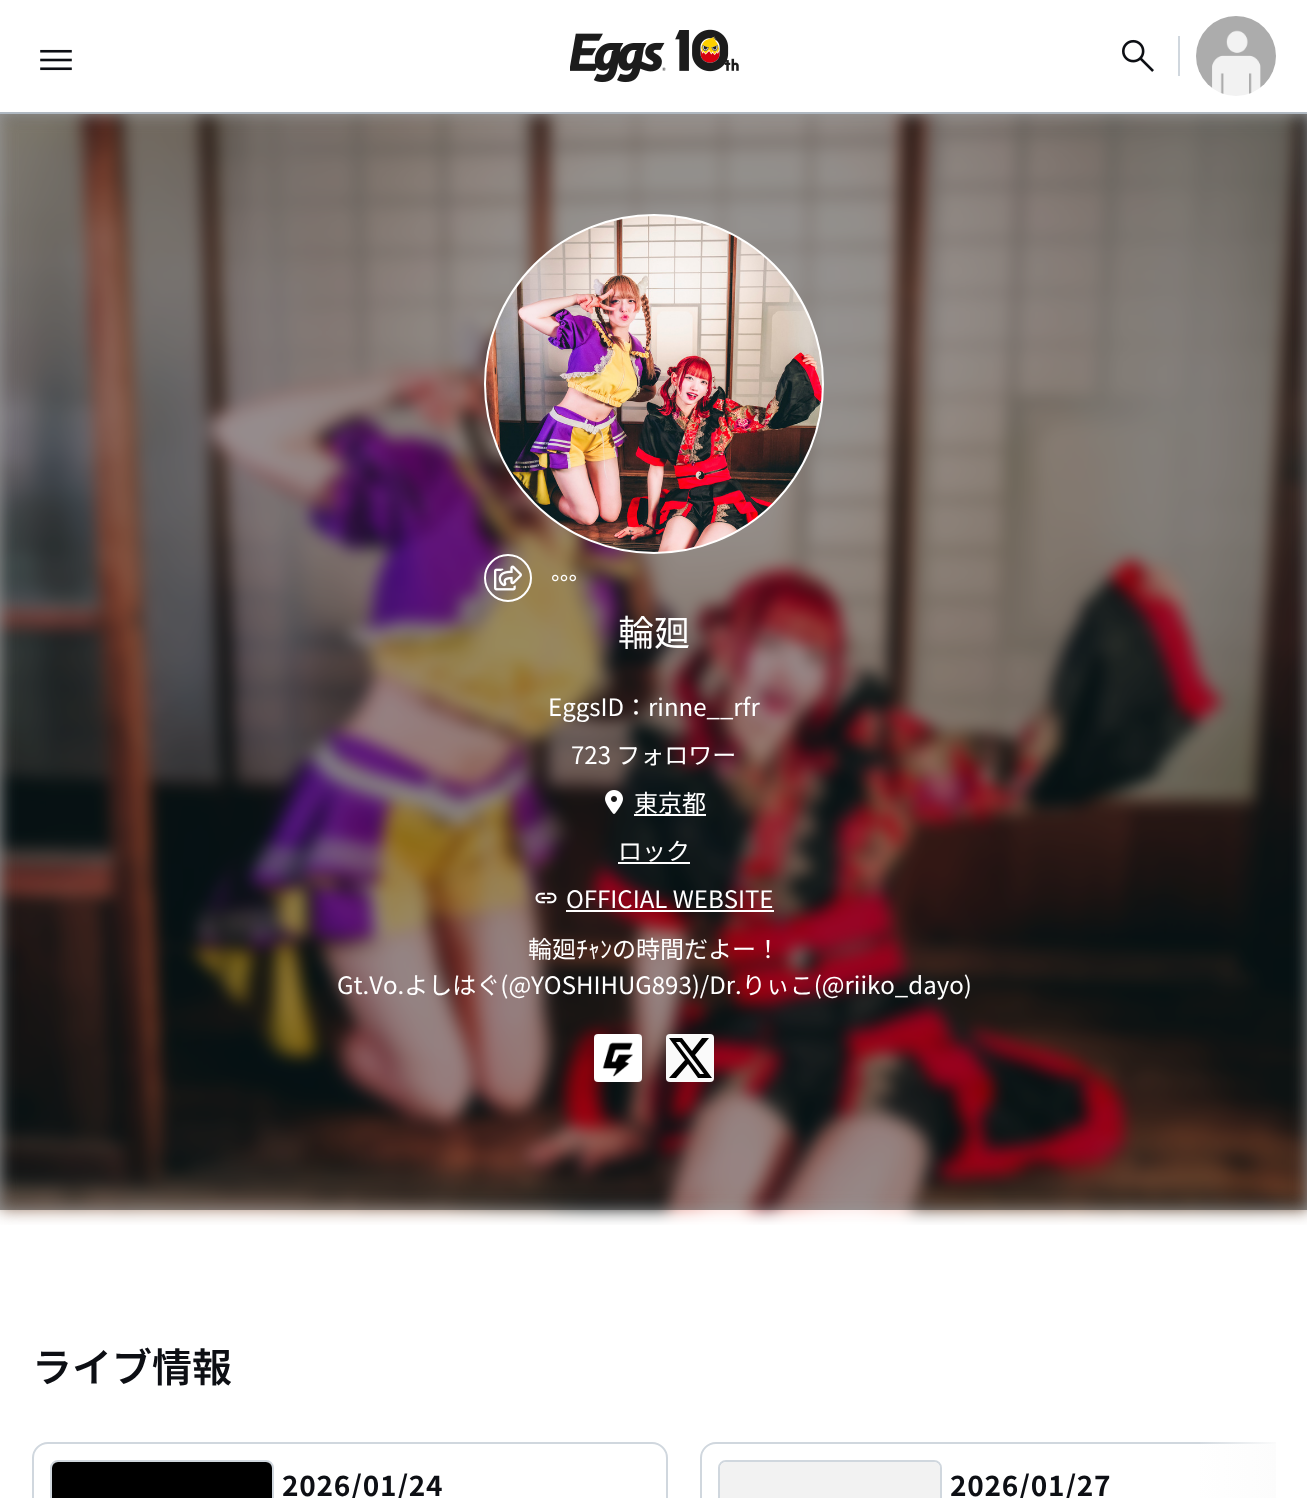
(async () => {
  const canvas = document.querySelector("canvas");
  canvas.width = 1307;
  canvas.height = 1498;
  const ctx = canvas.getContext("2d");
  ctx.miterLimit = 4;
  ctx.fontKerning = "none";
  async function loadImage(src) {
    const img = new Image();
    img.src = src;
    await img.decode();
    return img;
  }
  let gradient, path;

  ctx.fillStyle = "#ffffff";
  ctx.fillRect(0, 0, 1307, 1498);
  ctx.fillStyle = "#afb8c1";
  ctx.fillRect(0, 112, 1307, 2);
  ctx.drawImage(await loadImage("img/1.png"), 40, 49, 32, 22);
  ctx.drawImage(await loadImage("img/2.png"), 570, 29, 169, 54);
  ctx.drawImage(await loadImage("img/3.png"), 1122, 39, 32, 33);
  ctx.fillStyle = "#d0d7de";
  ctx.fillRect(1178, 36, 2, 40);
  ctx.drawImage(await loadImage("img/4.png"), 1196, 16, 80, 80);
  ctx.fillStyle = "#999999";
  ctx.fillRect(0, 114, 1307, 1096);
  ctx.drawImage(await loadImage("img/5.png"), 0, 114, 1307, 1111);
  ctx.fillStyle = "#ffffff";
  ctx.beginPath();
  ctx.arc(654, 384, 169, 0, Math.PI * 2);
  ctx.fill();
  ctx.strokeStyle = "#ffffff";
  ctx.lineWidth = 2;
  ctx.stroke();
  ctx.drawImage(await loadImage("img/6.png"), 486, 216, 336, 336);
  ctx.beginPath();
  ctx.arc(508, 578, 23, 0, Math.PI * 2);
  ctx.stroke();
  ctx.drawImage(await loadImage("img/7.png"), 494, 565, 28, 26);
  ctx.drawImage(await loadImage("img/8.png"), 552, 574, 24, 8);
  ctx.drawImage(await loadImage("img/9.png"), 605, 790, 18, 24);
  ctx.fillRect(634, 814, 72, 2);
  ctx.fillRect(618, 862, 72, 2);
  ctx.drawImage(await loadImage("img/10.png"), 535, 892, 22, 12);
  ctx.fillRect(566, 910, 208, 2);
  ctx.fillStyle = "#fafafa";
  ctx.beginPath();
  ctx.roundRect(594, 1034, 48, 48, 4);
  ctx.fill();
  ctx.drawImage(await loadImage("img/11.png"), 594, 1034, 48, 48);
  ctx.beginPath();
  ctx.roundRect(666, 1034, 48, 48, 4);
  ctx.fill();
  ctx.fillStyle = "#000000";
  path = new Path2D("M702 1038H709L695 1055L712 1078H698L688 1064L676 1078H669L685 1060L669 1038H682L692 1051ZM700 1074H704L680 1042H676Z");
  ctx.fill(path);
  ctx.beginPath();
  ctx.roundRect(33, 1443, 634, 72, 15);
  ctx.strokeStyle = "#d0d7de";
  ctx.stroke();
  ctx.beginPath();
  ctx.roundRect(51, 1461, 222, 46, 7);
  ctx.stroke();
  ctx.drawImage(await loadImage("img/12.png"), 52, 1462, 220, 36);
  ctx.save();
  ctx.beginPath();
  ctx.rect(32, 1442, 1244, 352);
  ctx.clip();
  ctx.beginPath();
  ctx.roundRect(701, 1443, 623, 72, 15);
  ctx.stroke();
  ctx.restore();
  ctx.beginPath();
  ctx.roundRect(719, 1461, 222, 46, 7);
  ctx.stroke();
  ctx.drawImage(await loadImage("img/13.png"), 720, 1462, 220, 36);
  gradient = ctx.createLinearGradient(1278, 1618, 1194, 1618);
  gradient.addColorStop(0, "#fcfcfc");
  gradient.addColorStop(1, "rgba(252, 252, 252, 0)");
  ctx.fillStyle = gradient;
  ctx.fillRect(1200, 1442, 76, 56);
  ctx.font = "36px Noto Sans JP";
  ctx.fillStyle = "#ffffff";
  ctx.fillText("輪廻", 618, 646);
  ctx.font = "24px Noto Sans JP";
  for (const [text, x, y] of [
    ["EggsID：rinne__rfr", 548, 716],
    ["723 フォロワー", 571, 764],
    ["東京都", 634, 812],
    ["ロック", 618, 860],
    ["OFFICIAL WEBSITE", 566, 908],
    ["輪廻ﾁｬﾝの時間だよー！", 528, 958],
    ["Gt.Vo.よしはぐ(@YOSHIHUG893)/Dr.りぃこ(@riiko_dayo)", 337, 994],
  ]) {
    ctx.fillText(text, x, y);
  }
  ctx.font = "600 40px Noto Sans JP";
  ctx.fillStyle = "#0d0f14";
  ctx.fillText("ライブ情報", 32, 1382);
  ctx.letterSpacing = "0.75px";
  ctx.font = "bold 28px Noto Sans JP";
  ctx.fillText("2026/01/24", 282, 1496);
  ctx.fillText("2026/01/27", 950, 1496);
})();
